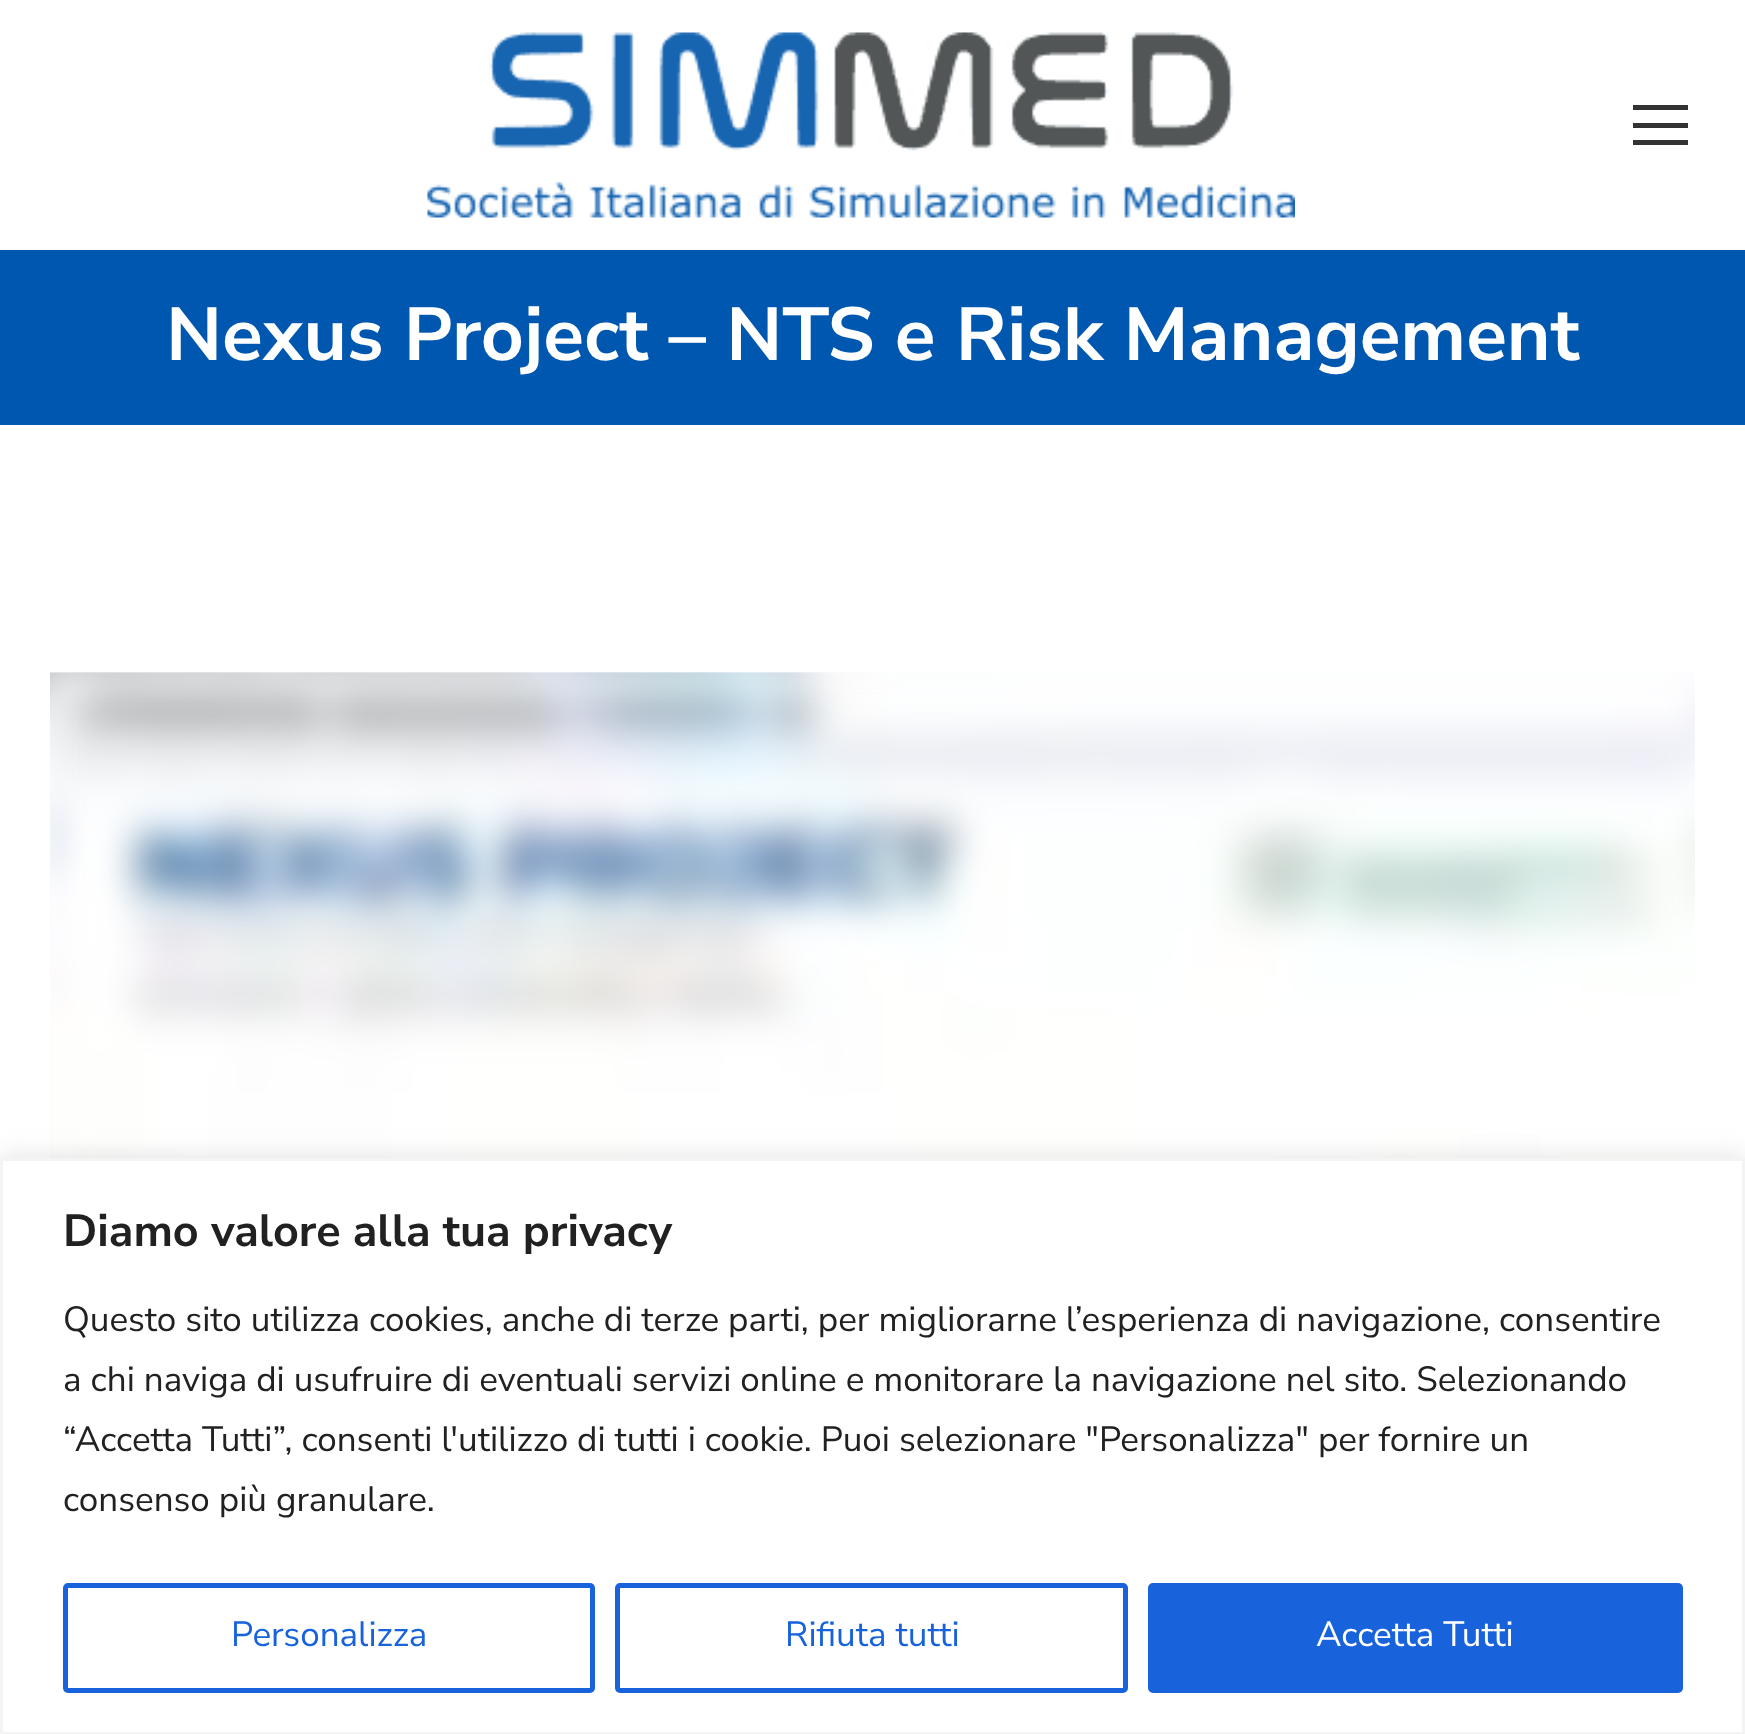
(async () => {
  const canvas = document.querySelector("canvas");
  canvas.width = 1745;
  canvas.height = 1734;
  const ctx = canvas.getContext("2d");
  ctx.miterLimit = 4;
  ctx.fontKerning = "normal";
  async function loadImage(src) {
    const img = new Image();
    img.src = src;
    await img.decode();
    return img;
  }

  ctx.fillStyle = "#ffffff";
  ctx.fillRect(0, 0, 1745, 1734);
  ctx.drawImage(await loadImage("img/1.png"), 427, 32, 868, 186);
  for (const [x, y, w, h, color] of [
    [1633, 105, 55, 5, "#333333"],
    [1633, 123, 55, 5, "#333333"],
    [1633, 140, 55, 5, "#333333"],
    [0, 250, 1745, 175, "#0057af"],
  ]) {
    ctx.fillStyle = color;
    ctx.fillRect(x, y, w, h);
  }
  ctx.drawImage(await loadImage("img/2.png"), 50, 672, 1645, 486);
  ctx.fillStyle = "rgba(172, 171, 171, 0.3)";
  ctx.filter = "blur(12.5px)";
  ctx.beginPath();
  ctx.rect(0, 1155, 1745, 578);
  ctx.fill();
  ctx.filter = "none";
  ctx.fillStyle = "#ffffff";
  ctx.beginPath();
  ctx.rect(1.5, 1159.5, 1742, 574);
  ctx.fill();
  ctx.strokeStyle = "#f4f4f4";
  ctx.lineWidth = 3;
  ctx.stroke();
  ctx.beginPath();
  ctx.roundRect(65.5, 1585.5, 527, 105, 2.5);
  ctx.strokeStyle = "#1863dc";
  ctx.lineWidth = 5;
  ctx.stroke();
  ctx.beginPath();
  ctx.roundRect(617.5, 1585.5, 508, 105, 2.5);
  ctx.stroke();
  ctx.fillStyle = "#1863dc";
  ctx.beginPath();
  ctx.roundRect(1150.5, 1585.5, 530, 105, 2.5);
  ctx.fill();
  ctx.stroke();
  ctx.font = "bold 75px Nunito Sans";
  ctx.fillStyle = "#ffffff";
  ctx.fillText("Nexus Project – NTS e Risk Management", 166, 360);
  ctx.font = "bold 45px Nunito Sans";
  ctx.fillStyle = "#212121";
  ctx.fillText("Diamo valore alla tua privacy", 63, 1246);
  ctx.font = "35px Nunito Sans";
  for (const [text, x, y] of [
    ["Questo sito utilizza cookies, anche di terze parti, per migliorarne l’esperienza di navigazione, consentire", 63, 1331],
    ["a chi naviga di usufruire di eventuali servizi online e monitorare la navigazione nel sito. Selezionando", 63, 1391],
    ["“Accetta Tutti”, consenti l'utilizzo di tutti i cookie. Puoi selezionare \"Personalizza\" per fornire un", 63, 1451],
    ["consenso più granulare.", 63, 1511],
  ]) {
    ctx.fillText(text, x, y);
  }
  ctx.fillStyle = "#1863dc";
  ctx.fillText("Personalizza", 231, 1646);
  ctx.fillText("Rifiuta tutti", 785, 1646);
  ctx.fillStyle = "#ffffff";
  ctx.fillText("Accetta Tutti", 1316, 1646);
})();
